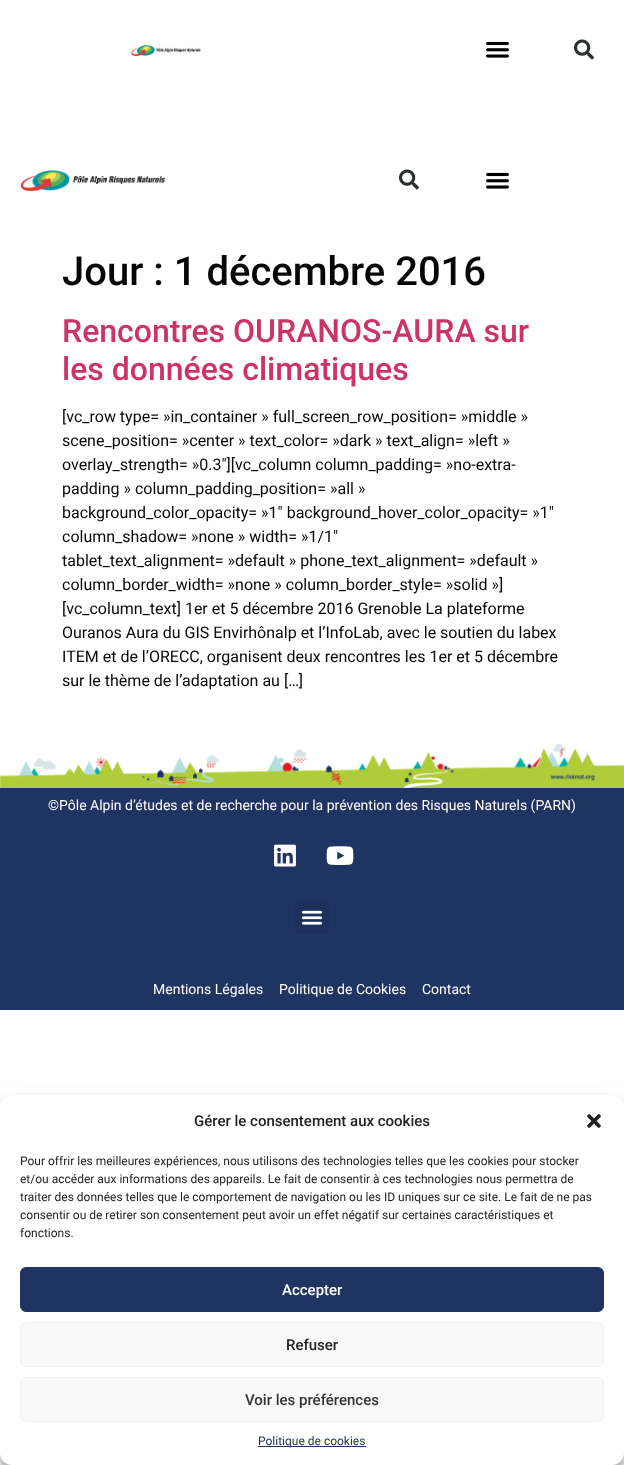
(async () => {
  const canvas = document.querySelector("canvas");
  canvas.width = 624;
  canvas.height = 1465;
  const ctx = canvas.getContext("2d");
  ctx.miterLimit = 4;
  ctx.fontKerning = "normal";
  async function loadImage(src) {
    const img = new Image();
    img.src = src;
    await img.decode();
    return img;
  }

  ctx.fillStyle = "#ffffff";
  ctx.fillRect(0, 0, 624, 1465);
  ctx.drawImage(await loadImage("img/1.png"), 131, 45, 70, 11);
  ctx.drawImage(await loadImage("img/2.png"), 486, 41, 23, 17);
  ctx.drawImage(await loadImage("img/3.png"), 574, 39, 20, 21);
  ctx.drawImage(await loadImage("img/4.png"), 20, 170, 146, 21);
  ctx.drawImage(await loadImage("img/3.png"), 399, 169, 20, 21);
  ctx.drawImage(await loadImage("img/2.png"), 486, 172, 23, 17);
  ctx.drawImage(await loadImage("img/5.png"), 0, 744, 624, 44);
  ctx.fillStyle = "#203462";
  ctx.fillRect(0, 788, 624, 222);
  ctx.drawImage(await loadImage("img/6.png"), 274, 844, 22, 23);
  ctx.drawImage(await loadImage("img/7.png"), 326, 846, 28, 19);
  ctx.fillStyle = "#1e315d";
  ctx.beginPath();
  ctx.roundRect(295, 901, 34, 33, 3);
  ctx.fill();
  ctx.drawImage(await loadImage("img/8.png"), 301, 910, 22, 15);
  ctx.fillStyle = "rgba(0, 0, 0, 0.23)";
  ctx.filter = "blur(3px)";
  ctx.beginPath();
  ctx.roundRect(0, 1101, 624, 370, 12);
  ctx.fill();
  ctx.filter = "none";
  ctx.fillStyle = "rgba(0, 0, 0, 0.19)";
  ctx.filter = "blur(10px)";
  ctx.beginPath();
  ctx.roundRect(0, 1105, 624, 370, 12);
  ctx.fill();
  ctx.filter = "none";
  ctx.fillStyle = "#ffffff";
  ctx.beginPath();
  ctx.roundRect(0, 1095, 624, 370, 12);
  ctx.fill();
  ctx.drawImage(await loadImage("img/9.png"), 587, 1114, 14, 14);
  ctx.fillStyle = "#203462";
  ctx.beginPath();
  ctx.roundRect(20.5, 1267.5, 583, 44, 5.5);
  ctx.fill();
  ctx.strokeStyle = "#203462";
  ctx.stroke();
  ctx.fillStyle = "#f9f9f9";
  ctx.beginPath();
  ctx.roundRect(20.5, 1322.5, 583, 44, 5.5);
  ctx.fill();
  ctx.strokeStyle = "#f2f2f2";
  ctx.stroke();
  ctx.beginPath();
  ctx.roundRect(20.5, 1377.5, 583, 44, 5.5);
  ctx.fill();
  ctx.stroke();
  ctx.fillStyle = "#203462";
  ctx.fillRect(258, 1446, 108, 1);
  ctx.font = "500 40px Roboto";
  ctx.fillStyle = "#060606";
  ctx.fillText("Jour : 1 décembre 2016", 62, 285);
  ctx.font = "500 32px Roboto";
  ctx.fillStyle = "#cc3366";
  ctx.fillText("Rencontres OURANOS-AURA sur", 62, 342);
  ctx.fillText("les données climatiques", 62, 380);
  ctx.font = "16px Roboto";
  ctx.fillStyle = "#060606";
  for (const [text, x, y] of [
    ["[vc_row type= »in_container » full_screen_row_position= »middle »", 62, 422],
    ["scene_position= »center » text_color= »dark » text_align= »left »", 62, 446],
    ["overlay_strength= »0.3″][vc_column column_padding= »no-extra-", 62, 470],
    ["padding » column_padding_position= »all »", 62, 494],
    ["background_color_opacity= »1″ background_hover_color_opacity= »1″", 62, 518],
    ["column_shadow= »none » width= »1/1″", 62, 542],
    ["tablet_text_alignment= »default » phone_text_alignment= »default »", 62, 566],
    ["column_border_width= »none » column_border_style= »solid »]", 62, 590],
    ["[vc_column_text] 1er et 5 décembre 2016 Grenoble La plateforme", 62, 614],
    ["Ouranos Aura du GIS Envirhônalp et l’InfoLab, avec le soutien du labex", 62, 638],
    ["ITEM et de l’ORECC, organisent deux rencontres les 1er et 5 décembre", 62, 662],
    ["sur le thème de l’adaptation au […]", 62, 686],
  ]) {
    ctx.fillText(text, x, y);
  }
  ctx.font = "14px Roboto";
  ctx.fillStyle = "#ffffff";
  for (const [text, x, y] of [
    ["©Pôle Alpin d’études et de recherche pour la prévention des Risques Naturels (PARN)", 48, 810],
    ["Mentions Légales", 153, 994],
    ["Politique de Cookies", 279, 994],
    ["Contact", 422, 994],
  ]) {
    ctx.fillText(text, x, y);
  }
  ctx.font = "500 15px Roboto";
  ctx.fillStyle = "#222222";
  ctx.fillText("Gérer le consentement aux cookies", 194, 1126);
  ctx.font = "12px Roboto";
  for (const [text, x, y] of [
    ["Pour offrir les meilleures expériences, nous utilisons des technologies telles que les cookies pour stocker", 20, 1165],
    ["et/ou accéder aux informations des appareils. Le fait de consentir à ces technologies nous permettra de", 20, 1183],
    ["traiter des données telles que le comportement de navigation ou les ID uniques sur ce site. Le fait de ne pas", 20, 1201],
    ["consentir ou de retirer son consentement peut avoir un effet négatif sur certaines caractéristiques et", 20, 1219],
    ["fonctions.", 20, 1237],
  ]) {
    ctx.fillText(text, x, y);
  }
  ctx.font = "500 15px Roboto";
  ctx.fillStyle = "#ffffff";
  ctx.fillText("Accepter", 282, 1295);
  ctx.fillStyle = "#222222";
  ctx.fillText("Refuser", 286, 1350);
  ctx.fillStyle = "#333333";
  ctx.fillText("Voir les préférences", 245, 1405);
  ctx.font = "12px Roboto";
  ctx.fillStyle = "#203462";
  ctx.fillText("Politique de cookies", 258, 1445);
})();
